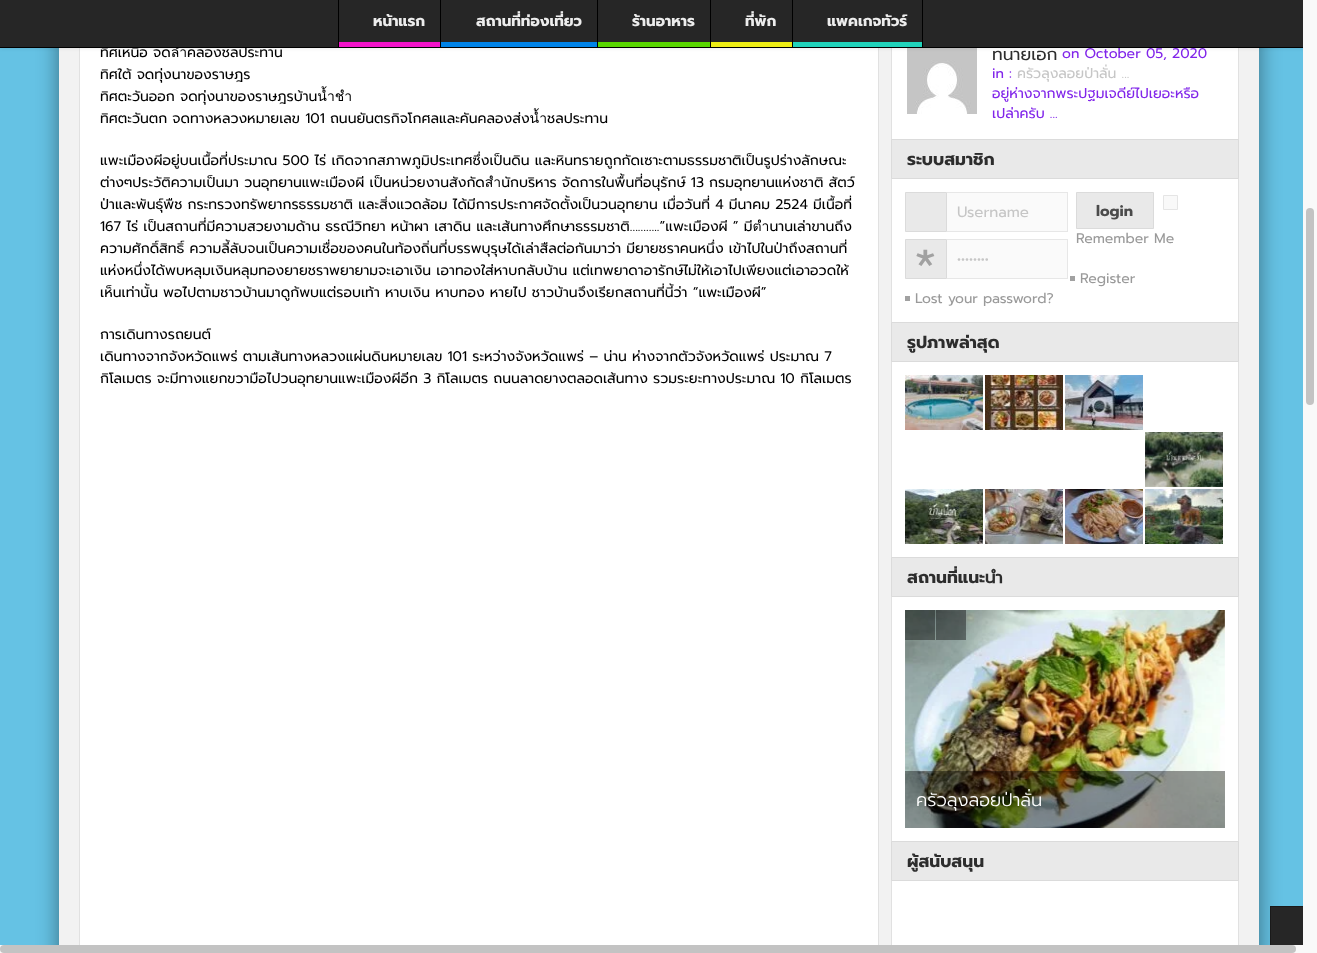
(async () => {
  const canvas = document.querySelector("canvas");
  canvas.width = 1317;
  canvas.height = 953;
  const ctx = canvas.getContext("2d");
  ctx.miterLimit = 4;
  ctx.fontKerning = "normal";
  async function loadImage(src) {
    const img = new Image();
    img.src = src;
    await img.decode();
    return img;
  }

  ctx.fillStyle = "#65c2e4";
  ctx.fillRect(0, 0, 1317, 953);
  ctx.fillStyle = "rgba(0, 0, 0, 0.44)";
  ctx.filter = "blur(10.5px)";
  ctx.beginPath();
  ctx.rect(59, -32, 1200, 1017);
  ctx.fill();
  ctx.filter = "none";
  ctx.fillStyle = "#f2f2f2";
  ctx.fillRect(59, 48, 1200, 897);
  ctx.fillStyle = "#ffffff";
  ctx.fillRect(80, 48, 798, 897);
  ctx.strokeStyle = "#e1e1e1";
  ctx.strokeRect(79.5, -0.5, 799, 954);
  ctx.fillRect(892, 48, 346, 897);
  ctx.strokeRect(891.5, -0.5, 347, 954);
  ctx.drawImage(await loadImage("img/1.png"), 907, 48, 70, 66);
  ctx.fillStyle = "rgba(0, 0, 0, 0.1)";
  ctx.filter = "blur(2px)";
  ctx.beginPath();
  ctx.rect(0, 0, 1317, 48);
  ctx.fill();
  ctx.filter = "none";
  ctx.fillStyle = "#e9e9e9";
  ctx.beginPath();
  ctx.rect(891.5, 139.5, 347, 39);
  ctx.fill();
  ctx.strokeStyle = "#dbdbdb";
  ctx.stroke();
  ctx.fillStyle = "#f9f9f9";
  ctx.beginPath();
  ctx.rect(1163.5, 195.5, 14, 14);
  ctx.fill();
  ctx.strokeStyle = "#e5e5e5";
  ctx.stroke();
  ctx.fillStyle = "#e9e9e9";
  ctx.beginPath();
  ctx.rect(905.5, 192.5, 41, 39);
  ctx.fill();
  ctx.strokeStyle = "#dbdbdb";
  ctx.stroke();
  for (const [x, y, w, h, color] of [
    [947, 193, 120, 38, "#fafafa"],
    [947, 192, 121, 1, "#e7e7e7"],
    [1067, 192, 1, 40, "#e7e7e7"],
    [947, 231, 121, 1, "#e7e7e7"],
  ]) {
    ctx.fillStyle = color;
    ctx.fillRect(x, y, w, h);
  }
  ctx.fillStyle = "#e9e9e9";
  ctx.beginPath();
  ctx.rect(1076.5, 192.5, 77, 36);
  ctx.fill();
  ctx.stroke();
  ctx.beginPath();
  ctx.rect(905.5, 239.5, 41, 39);
  ctx.fill();
  ctx.stroke();
  for (const [x, y, w, h, color] of [
    [947, 240, 120, 38, "#fafafa"],
    [947, 239, 121, 1, "#e7e7e7"],
    [1067, 239, 1, 40, "#e7e7e7"],
    [947, 278, 121, 1, "#e7e7e7"],
    [1070, 276, 5, 5, "#a1a1a1"],
    [905, 296, 5, 5, "#a1a1a1"],
  ]) {
    ctx.fillStyle = color;
    ctx.fillRect(x, y, w, h);
  }
  ctx.fillStyle = "#e9e9e9";
  ctx.beginPath();
  ctx.rect(891.5, 322.5, 347, 39);
  ctx.fill();
  ctx.stroke();
  ctx.drawImage(await loadImage("img/2.png"), 905, 375, 78, 55);
  ctx.drawImage(await loadImage("img/3.png"), 985, 375, 78, 55);
  ctx.drawImage(await loadImage("img/4.png"), 1065, 375, 78, 55);
  ctx.drawImage(await loadImage("img/5.png"), 1145, 432, 78, 55);
  ctx.drawImage(await loadImage("img/6.png"), 905, 489, 78, 55);
  ctx.drawImage(await loadImage("img/7.png"), 985, 489, 78, 55);
  ctx.drawImage(await loadImage("img/8.png"), 1065, 489, 78, 55);
  ctx.drawImage(await loadImage("img/9.png"), 1145, 489, 78, 55);
  ctx.beginPath();
  ctx.rect(891.5, 557.5, 347, 39);
  ctx.fill();
  ctx.stroke();
  ctx.drawImage(await loadImage("img/10.png"), 905, 610, 320, 218);
  for (const [x, y, w, h, color] of [
    [905, 610, 30, 30, "rgba(0, 0, 0, 0.4)"],
    [936, 610, 30, 30, "rgba(0, 0, 0, 0.4)"],
    [905, 771, 320, 57, "rgba(0, 0, 0, 0.4)"],
  ]) {
    ctx.fillStyle = color;
    ctx.fillRect(x, y, w, h);
  }
  ctx.fillStyle = "#e9e9e9";
  ctx.beginPath();
  ctx.rect(891.5, 841.5, 347, 39);
  ctx.fill();
  ctx.stroke();
  ctx.fillStyle = "#262626";
  ctx.fillRect(1271, 907, 32, 38);
  ctx.strokeStyle = "#1a1a1a";
  ctx.strokeRect(1270.5, 906.5, 46, 46);
  ctx.fillStyle = "#f9f9f9";
  ctx.fillRect(1303, 0, 14, 945);
  ctx.fillStyle = "#c3c3c3";
  ctx.beginPath();
  ctx.roundRect(1306, 208, 8, 197, 4);
  ctx.fill();
  ctx.fillStyle = "#f9f9f9";
  ctx.fillRect(0, 945, 1317, 8);
  ctx.fillStyle = "#c3c3c3";
  ctx.beginPath();
  ctx.roundRect(0, 945, 1296, 8, 4);
  ctx.fill();
  ctx.font = "14px Prompt";
  ctx.fillStyle = "#000000";
  ctx.fillText("ทิศเหนือ จดลำคลองชลประทาน", 100, 57);
  ctx.fillStyle = "#262626";
  ctx.fillRect(0, 0, 1303, 47);
  ctx.fillStyle = "#21d3bb";
  ctx.fillRect(793, 42, 129, 5);
  ctx.font = "bold 15px Prompt";
  ctx.fillStyle = "#ededed";
  ctx.fillText("แพคเกจทัวร์", 827, 26);
  ctx.fillStyle = "#000000";
  ctx.fillRect(922, 0, 1, 47);
  ctx.fillStyle = "#eded15";
  ctx.fillRect(711, 42, 81, 5);
  ctx.fillStyle = "#ededed";
  ctx.fillText("ที่พัก", 745, 26);
  ctx.fillStyle = "#000000";
  ctx.fillRect(792, 0, 1, 47);
  ctx.fillStyle = "#59d600";
  ctx.fillRect(598, 42, 112, 5);
  ctx.fillStyle = "#ededed";
  ctx.fillText("ร้านอาหาร", 632, 26);
  ctx.fillStyle = "#000000";
  ctx.fillRect(710, 0, 1, 47);
  ctx.fillStyle = "#0083e8";
  ctx.fillRect(441, 42, 156, 5);
  ctx.fillStyle = "#ededed";
  ctx.fillText("สถานที่ท่องเที่ยว", 476, 26);
  ctx.fillStyle = "#000000";
  ctx.fillRect(597, 0, 1, 47);
  ctx.fillStyle = "#f213c9";
  ctx.fillRect(339, 42, 101, 5);
  ctx.fillStyle = "#ededed";
  ctx.fillText("หน้าแรก", 373, 26);
  ctx.fillStyle = "#000000";
  ctx.fillRect(338, 0, 1, 47);
  ctx.fillRect(440, 0, 1, 47);
  ctx.font = "14px Prompt";
  for (const [text, x, y] of [
    ["ทิศใต้ จดทุ่งนาของราษฎร", 100, 79],
    ["ทิศตะวันออก จดทุ่งนาของราษฎรบ้านน้ำชำ", 100, 101],
    ["ทิศตะวันตก จดทางหลวงหมายเลข 101 ถนนยันตรกิจโกศลและคันคลองส่งน้ำชลประทาน", 100, 123],
    ["แพะเมืองผีอยู่บนเนื้อที่ประมาณ 500 ไร่ เกิดจากสภาพภูมิประเทศซึ่งเป็นดิน และหินทรายถูกกัดเซาะตามธรรมชาติเป็นรูปร่างลักษณะ", 100, 165],
    ["ต่างๆประวัติความเป็นมา วนอุทยานแพะเมืองผี เป็นหน่วยงานสังกัดสำนักบริหาร จัดการในพื้นที่อนุรักษ์ 13 กรมอุทยานแห่งชาติ สัตว์", 100, 187],
    ["ป่าและพันธุ์พืช กระทรวงทรัพยากรธรรมชาติ และสิ่งแวดล้อม ได้มีการประกาศจัดตั้งเป็นวนอุทยาน เมื่อวันที่ 4 มีนาคม 2524 มีเนื้อที่", 100, 209],
    ["167 ไร่ เป็นสถานที่มีความสวยงามด้าน ธรณีวิทยา หน้าผา เสาดิน และเส้นทางศึกษาธรรมชาติ………..”แพะเมืองผี ” มีตำนานเล่าขานถึง", 100, 231],
    ["ความศักดิ์สิทธิ์ ความลี้ลับจนเป็นความเชื่อของคนในท้องถิ่นที่บรรพบุรุษได้เล่าสืลต่อกันมาว่า มียายชราคนหนึ่ง เข้าไปในป่าถึงสถานที่", 100, 253],
    ["แห่งหนึ่งได้พบหลุมเงินหลุมทองยายชราพยายามจะเอาเงิน เอาทองใส่หาบกลับบ้าน แต่เทพยาดาอารักษ์ไม่ให้เอาไปเพียงแต่เอาอวดให้", 100, 275],
    ["เห็นเท่านั้น พอไปตามชาวบ้านมาดูก้พบแต่รอบเท้า หาบเงิน หาบทอง หายไป ชาวบ้านจึงเรียกสถานที่นี้ว่า “แพะเมืองผี”", 100, 297],
    ["การเดินทางรถยนต์", 100, 339],
    ["เดินทางจากจังหวัดแพร่ ตามเส้นทางหลวงแผ่นดินหมายเลข 101 ระหว่างจังหวัดแพร่ – น่าน ห่างจากตัวจังหวัดแพร่ ประมาณ 7", 100, 361],
    ["กิโลเมตร จะมีทางแยกขวามือไปวนอุทยานแพะเมืองผีอีก 3 กิโลเมตร ถนนลาดยางตลอดเส้นทาง รวมระยะทางประมาณ 10 กิโลเมตร", 100, 383],
  ]) {
    ctx.fillText(text, x, y);
  }
  ctx.font = "17px Prompt";
  ctx.fillStyle = "#2d2d2d";
  ctx.fillText("ทนายเอก", 992, 60);
  ctx.font = "14px Prompt";
  ctx.fillStyle = "#8125ea";
  ctx.fillText("on October 05, 2020", 1062, 58);
  ctx.fillStyle = "#000000";
  ctx.fillRect(0, 47, 1303, 1);
  ctx.fillStyle = "#8125ea";
  ctx.fillText("in :", 992, 78);
  ctx.fillStyle = "#c6c6c6";
  ctx.fillText("ครัวลุงลอยป่าลั่น ...", 1017, 78);
  ctx.fillStyle = "#8125ea";
  ctx.fillText("อยู่ห่างจากพระปฐมเจดีย์ไปเยอะหรือ", 992, 98);
  ctx.fillText("เปล่าครับ ...", 992, 118);
  ctx.font = "bold 17px Prompt";
  ctx.fillStyle = "#2d2d2d";
  ctx.fillText("ระบบสมาชิก", 907, 165);
  ctx.font = "15px Prompt";
  ctx.fillStyle = "#c6c6c6";
  ctx.fillText("Username", 957, 217);
  ctx.font = "bold 15px Prompt";
  ctx.fillStyle = "#4b4b4b";
  ctx.fillText("login", 1096, 216);
  ctx.font = "14px Prompt";
  ctx.fillStyle = "#9a9a9a";
  ctx.fillText("Remember Me", 1076, 243);
  ctx.font = "52px Prompt";
  ctx.fillStyle = "#a1a1a1";
  ctx.fillText("*", 914, 286);
  ctx.font = "15px Prompt";
  ctx.fillStyle = "#c6c6c6";
  ctx.fillText("••••••••", 957, 264);
  ctx.font = "14px Prompt";
  ctx.fillStyle = "#9a9a9a";
  ctx.fillText("Register", 1080, 283);
  ctx.fillText("Lost your password?", 915, 303);
  ctx.font = "bold 17px Prompt";
  ctx.fillStyle = "#2d2d2d";
  ctx.fillText("รูปภาพล่าสุด", 907, 348);
  ctx.fillText("สถานที่แนะนำ", 907, 583);
  ctx.font = "300 18px Prompt";
  ctx.fillStyle = "#ffffff";
  ctx.fillText("ครัวลุงลอยป่าลั่น", 916, 806);
  ctx.font = "bold 17px Prompt";
  ctx.fillStyle = "#2d2d2d";
  ctx.fillText("ผู้สนับสนุน", 907, 867);
})();
